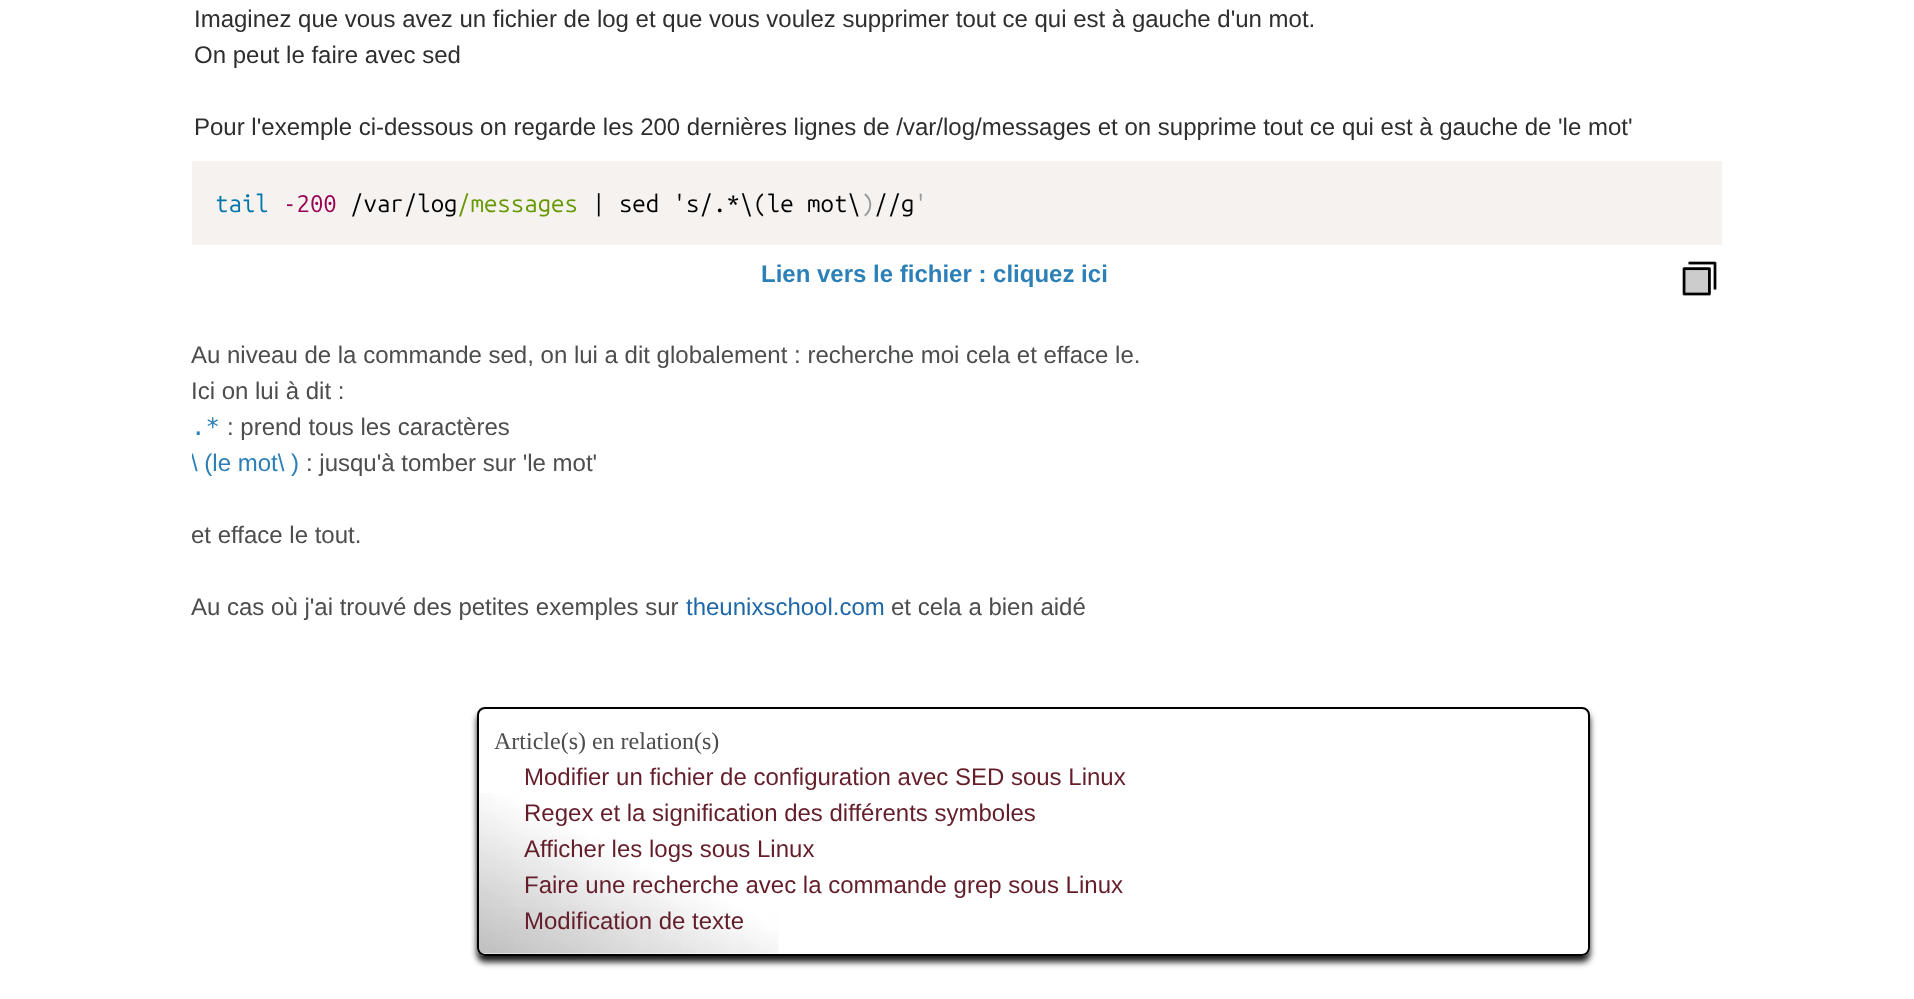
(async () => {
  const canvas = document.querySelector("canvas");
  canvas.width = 1914;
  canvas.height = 999;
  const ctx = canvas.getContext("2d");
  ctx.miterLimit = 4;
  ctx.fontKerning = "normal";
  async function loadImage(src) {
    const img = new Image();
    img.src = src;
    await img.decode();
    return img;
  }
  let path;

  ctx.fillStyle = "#ffffff";
  ctx.fillRect(0, 0, 1914, 999);
  ctx.fillStyle = "#f5f2f0";
  ctx.fillRect(192, 161, 1530, 84);
  ctx.drawImage(await loadImage("img/1.png"), 1682, 261, 35, 35);
  ctx.save();
  path = new Path2D("M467 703H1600V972H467ZM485 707H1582C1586.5 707 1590 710.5 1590 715V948C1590 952.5 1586.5 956 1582 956H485C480.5 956 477 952.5 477 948V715C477 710.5 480.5 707 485 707Z");
  ctx.clip(path, "evenodd");
  ctx.fillStyle = "#1c1a19";
  ctx.filter = "blur(3px)";
  ctx.beginPath();
  ctx.roundRect(477, 713, 1113, 249, 8);
  ctx.fill();
  ctx.filter = "none";
  ctx.restore();
  ctx.drawImage(await loadImage("img/2.png"), 478, 793, 301, 161);
  ctx.beginPath();
  ctx.roundRect(478, 708, 1111, 247, 7);
  ctx.strokeStyle = "#000000";
  ctx.lineWidth = 2;
  ctx.stroke();
  ctx.font = "24px Liberation Sans";
  ctx.fillStyle = "#2e2e2e";
  for (const [text, x, y] of [
    ["Imaginez que vous avez un fichier de log et que vous voulez supprimer tout ce qui est à gauche d'un mot.", 194, 27],
    ["On peut le faire avec sed", 194, 63],
    ["Pour l'exemple ci-dessous on regarde les 200 dernières lignes de /var/log/messages et on supprime tout ce qui est à gauche de 'le mot'", 194, 135],
  ]) {
    ctx.fillText(text, x, y);
  }
  ctx.font = "24px Ubuntu Mono";
  ctx.fillStyle = "#0077aa";
  ctx.fillText("tail", 215, 212);
  ctx.fillStyle = "#000000";
  ctx.fillText("/var/log", 350, 212);
  ctx.fillStyle = "#669900";
  ctx.fillText("/messages", 457, 212);
  ctx.fillStyle = "#000000";
  ctx.fillText("| sed 's/.*\\(le mot\\ //g", 592, 212);
  ctx.fillStyle = "#990055";
  ctx.fillText("-200", 283, 212);
  ctx.fillStyle = "#999999";
  ctx.fillText(")", 861, 212);
  ctx.fillText("'", 914, 212);
  ctx.font = "bold 24px Liberation Sans";
  ctx.fillStyle = "#2c80b7";
  ctx.fillText("Lien vers le fichier : cliquez ici", 761, 282);
  ctx.font = "24px Liberation Sans";
  ctx.fillStyle = "#4c4d4e";
  ctx.fillText("Au niveau de la commande sed, on lui a dit globalement : recherche moi cela et efface le.", 191, 363);
  ctx.fillText("Ici on lui à dit :", 191, 399);
  ctx.font = "24px DejaVu Sans Mono";
  ctx.fillStyle = "#2c80b7";
  ctx.fillText(".*", 191, 435);
  ctx.font = "24px Liberation Sans";
  ctx.fillStyle = "#4c4d4e";
  ctx.fillText(": prend tous les caractères", 227, 435);
  ctx.save();
  ctx.beginPath();
  ctx.rect(192, 338, 1530, 288);
  ctx.clip();
  ctx.fillStyle = "#2c80b7";
  ctx.fillText("\\ (le mot\\ )", 191, 471);
  ctx.restore();
  for (const [text, x, y] of [
    [": jusqu'à tomber sur 'le mot'", 306, 471],
    ["et efface le tout.", 191, 543],
    ["Au cas où j'ai trouvé des petites exemples sur", 191, 615],
  ]) {
    ctx.fillText(text, x, y);
  }
  ctx.fillStyle = "#1f68a7";
  ctx.fillText("theunixschool.com", 686, 615);
  ctx.fillStyle = "#4c4d4e";
  ctx.fillText("et cela a bien aidé", 891, 615);
  ctx.font = "24px Liberation Serif";
  ctx.fillText("Article(s) en relation(s)", 494, 749);
  ctx.font = "24px Liberation Sans";
  ctx.fillStyle = "#641e2a";
  for (const [text, x, y] of [
    ["Modifier un fichier de configuration avec SED sous Linux", 524, 785],
    ["Regex et la signification des différents symboles", 524, 821],
    ["Afficher les logs sous Linux", 524, 857],
    ["Faire une recherche avec la commande grep sous Linux", 524, 893],
    ["Modification de texte", 524, 929],
  ]) {
    ctx.fillText(text, x, y);
  }
})();
